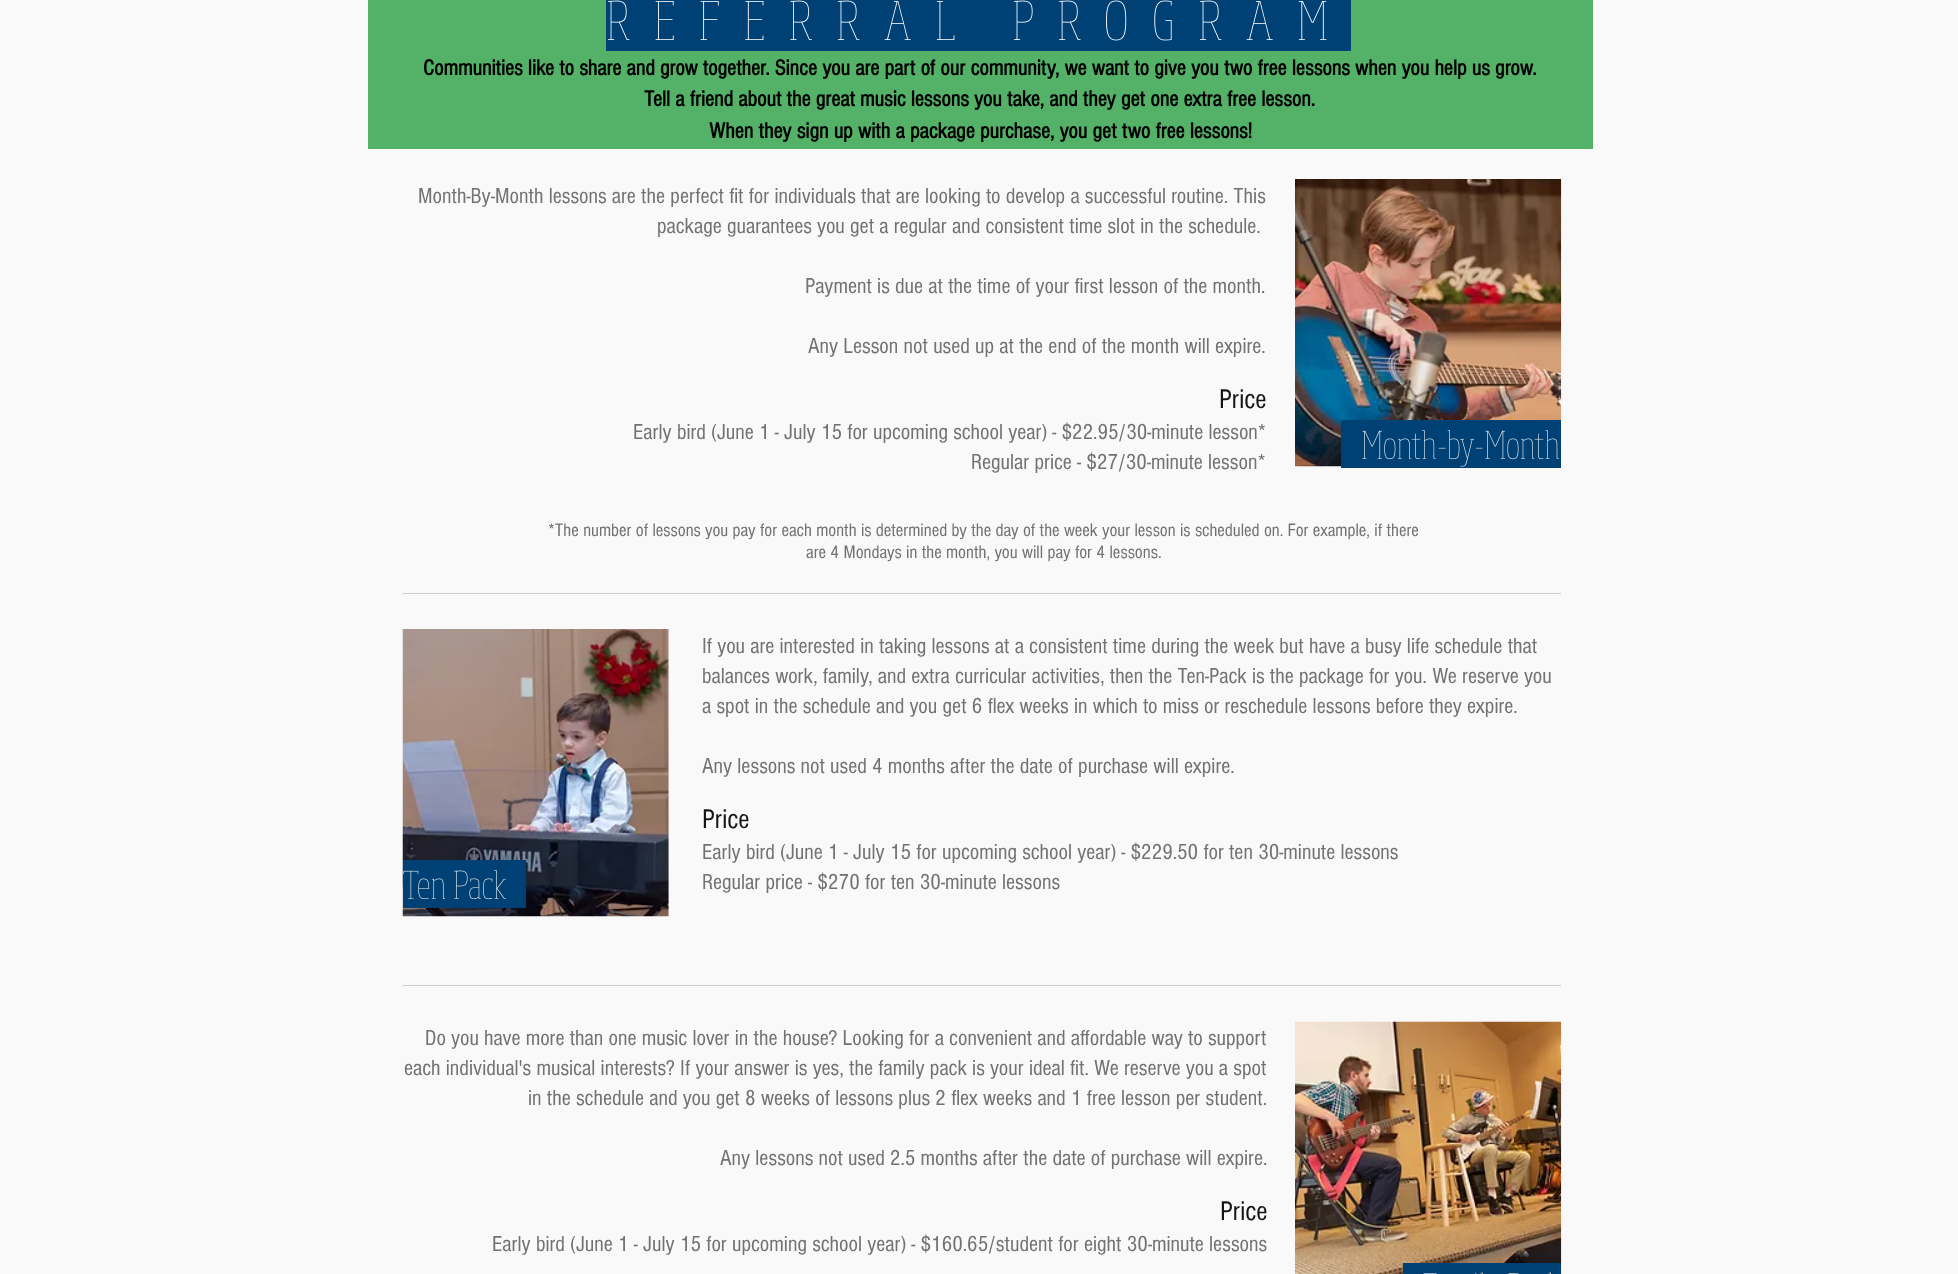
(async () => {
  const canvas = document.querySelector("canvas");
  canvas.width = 1958;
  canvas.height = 1274;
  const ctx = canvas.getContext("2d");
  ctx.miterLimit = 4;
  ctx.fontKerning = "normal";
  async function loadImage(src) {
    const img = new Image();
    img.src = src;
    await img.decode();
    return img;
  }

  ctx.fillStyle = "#f9f9f9";
  ctx.fillRect(0, 0, 1958, 1274);
  ctx.fillStyle = "#53b268";
  ctx.fillRect(368, 0, 1225, 149);
  ctx.fillStyle = "#004175";
  ctx.fillRect(606, 0, 745, 51);
  ctx.drawImage(await loadImage("img/1.png"), 608, 0, 719, 41);
  ctx.drawImage(await loadImage("img/2.png"), 1295, 179, 267, 288);
  ctx.fillRect(1341, 420, 220, 48);
  ctx.drawImage(await loadImage("img/3.png"), 1362, 430, 197, 37);
  ctx.fillStyle = "#cdcccc";
  ctx.fillRect(403, 593, 1158, 1);
  ctx.drawImage(await loadImage("img/4.png"), 402, 629, 267, 288);
  ctx.fillStyle = "#004175";
  ctx.fillRect(403, 860, 123, 48);
  ctx.drawImage(await loadImage("img/5.png"), 403, 870, 103, 30);
  ctx.fillStyle = "#cdcccc";
  ctx.fillRect(403, 985, 1158, 1);
  ctx.drawImage(await loadImage("img/6.png"), 1295, 1021, 267, 253);
  ctx.fillStyle = "#004175";
  ctx.fillRect(1403, 1263, 158, 11);
  ctx.drawImage(await loadImage("img/7.png"), 1423, 1272, 128, 2);
  ctx.font = "bold 22.5px 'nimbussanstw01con'";
  ctx.fillStyle = "#000000";
  for (const [text, x, y] of [
    ["Communities like to share and grow together. Since you are part of our community, we want to give you two free lessons when you help us grow.", 423, 75],
    ["Tell a friend about the great music lessons you take, and they get one extra free lesson.", 644, 106],
    ["When they sign up with a package purchase, you get two free lessons!", 709, 138],
  ]) {
    ctx.fillText(text, x, y);
  }
  ctx.font = "22.5px 'nimbussanstw01con'";
  ctx.fillStyle = "#727272";
  for (const [text, x, y] of [
    ["Month-By-Month lessons are the perfect fit for individuals that are looking to develop a successful routine. This", 418, 203],
    ["package guarantees you get a regular and consistent time slot in the schedule.", 657, 233],
    ["Payment is due at the time of your first lesson of the month.", 805, 293],
    ["Any Lesson not used up at the end of the month will expire.", 808, 353],
  ]) {
    ctx.fillText(text, x, y);
  }
  ctx.font = "28px 'nimbussanstw01con'";
  ctx.fillStyle = "#141414";
  ctx.fillText("Price", 1219, 408);
  ctx.font = "22.5px 'nimbussanstw01con'";
  ctx.fillStyle = "#727272";
  ctx.fillText("Early bird (June 1 - July 15 for upcoming school year) - $22.95/30-minute lesson*", 633, 439);
  ctx.fillText("Regular price - $27/30-minute lesson*", 971, 469);
  ctx.font = "18.75px 'nimbussanstw01con'";
  ctx.fillText("*The number of lessons you pay for each month is determined by the day of the week your lesson is scheduled on. For example, if there", 548, 536);
  ctx.fillText("are 4 Mondays in the month, you will pay for 4 lessons.", 806, 558);
  ctx.font = "22.5px 'nimbussanstw01con'";
  for (const [text, x, y] of [
    ["If you are interested in taking lessons at a consistent time during the week but have a busy life schedule that", 702, 653],
    ["balances work, family, and extra curricular activities, then the Ten-Pack is the package for you. We reserve you", 702, 683],
    ["a spot in the schedule and you get 6 flex weeks in which to miss or reschedule lessons before they expire.", 702, 713],
    ["Any lessons not used 4 months after the date of purchase will expire.", 702, 773],
  ]) {
    ctx.fillText(text, x, y);
  }
  ctx.font = "28px 'nimbussanstw01con'";
  ctx.fillStyle = "#141414";
  ctx.fillText("Price", 702, 828);
  ctx.font = "22.5px 'nimbussanstw01con'";
  ctx.fillStyle = "#727272";
  for (const [text, x, y] of [
    ["Early bird (June 1 - July 15 for upcoming school year) - $229.50 for ten 30-minute lessons", 702, 859],
    ["Regular price - $270 for ten 30-minute lessons", 702, 889],
    ["Do you have more than one music lover in the house? Looking for a convenient and affordable way to support", 425, 1045],
    ["each individual's musical interests? If your answer is yes, the family pack is your ideal fit. We reserve you a spot", 404, 1075],
    ["in the schedule and you get 8 weeks of lessons plus 2 flex weeks and 1 free lesson per student.", 528, 1105],
    ["Any lessons not used 2.5 months after the date of purchase will expire.", 720, 1165],
  ]) {
    ctx.fillText(text, x, y);
  }
  ctx.font = "28px 'nimbussanstw01con'";
  ctx.fillStyle = "#141414";
  ctx.fillText("Price", 1220, 1220);
  ctx.font = "22.5px 'nimbussanstw01con'";
  ctx.fillStyle = "#727272";
  ctx.fillText("Early bird (June 1 - July 15 for upcoming school year) - $160.65/student for eight 30-minute lessons", 492, 1251);
})();
